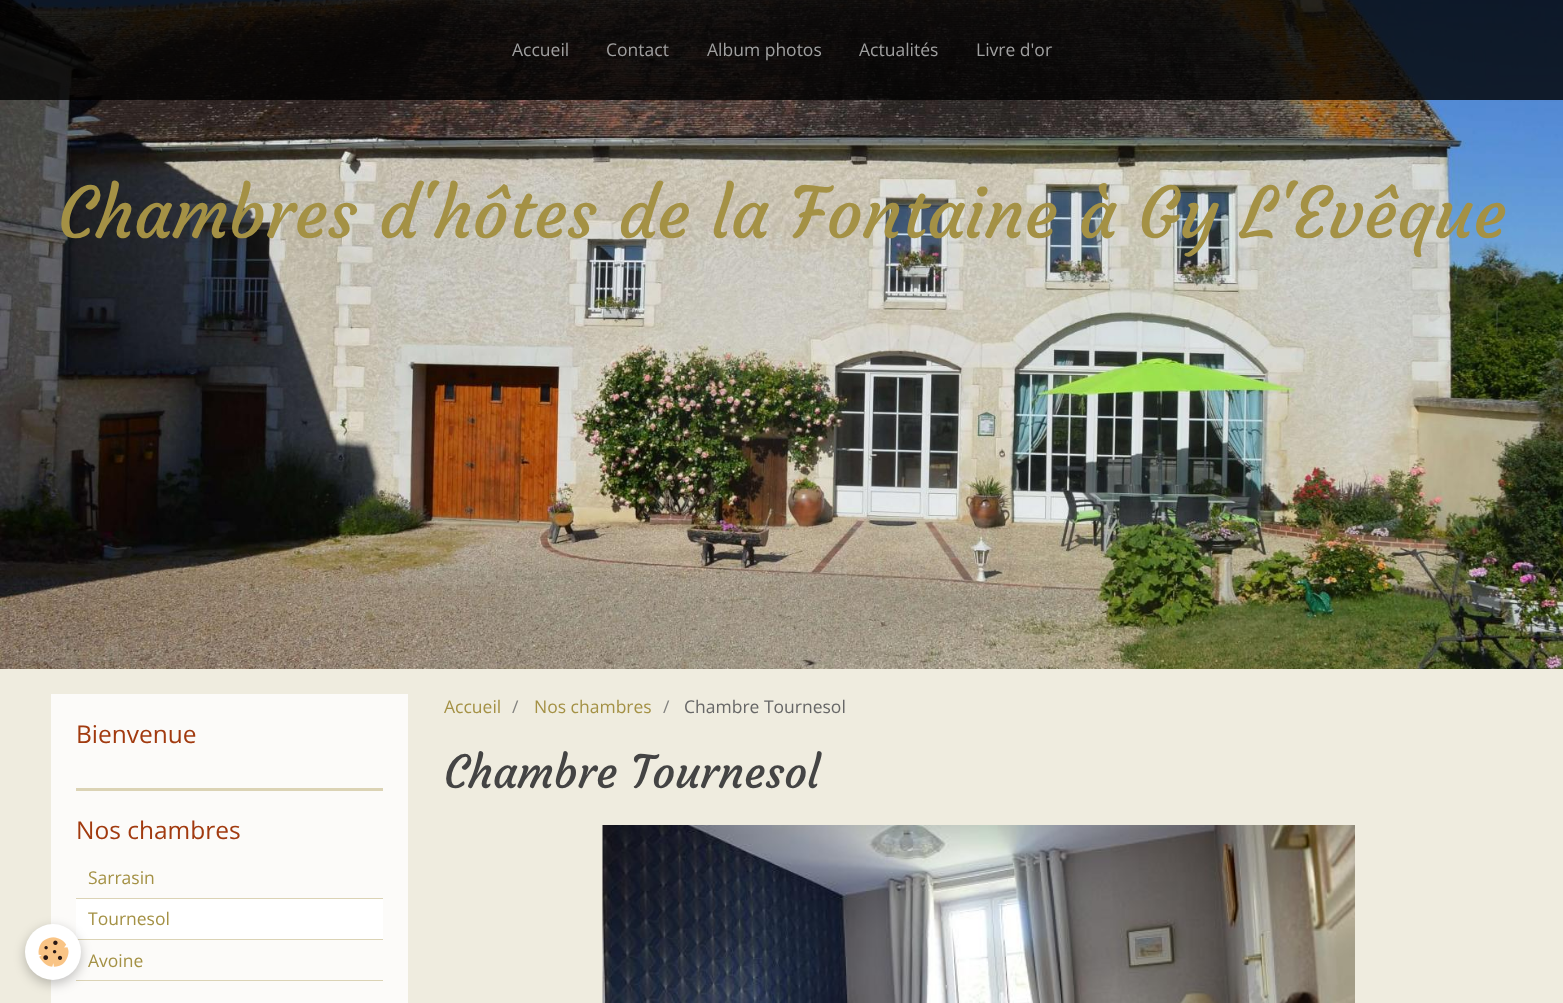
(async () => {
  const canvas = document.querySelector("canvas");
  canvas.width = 1563;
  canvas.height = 1003;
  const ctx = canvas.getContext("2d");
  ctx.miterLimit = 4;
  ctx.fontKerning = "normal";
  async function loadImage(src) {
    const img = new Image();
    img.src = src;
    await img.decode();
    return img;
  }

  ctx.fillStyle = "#efecdf";
  ctx.fillRect(0, 0, 1563, 1003);
  ctx.drawImage(await loadImage("img/1.png"), 0, 0, 1563, 669);
  for (const [x, y, w, h, color] of [
    [0, 0, 1563, 100, "rgba(0, 0, 0, 0.8)"],
    [51, 694, 357, 309, "#fcfbf9"],
    [76, 939, 307, 1, "#dbd3b5"],
    [76, 899, 307, 40, "#ffffff"],
    [76, 980, 307, 1, "#dbd3b5"],
  ]) {
    ctx.fillStyle = color;
    ctx.fillRect(x, y, w, h);
  }
  ctx.fillStyle = "rgba(0, 0, 0, 0.24)";
  ctx.filter = "blur(6px)";
  ctx.beginPath();
  ctx.roundRect(25, 928, 56, 56, 28);
  ctx.fill();
  ctx.filter = "none";
  ctx.fillStyle = "#ffffff";
  ctx.beginPath();
  ctx.arc(53, 952, 28, 0, Math.PI * 2);
  ctx.fill();
  ctx.drawImage(await loadImage("img/2.png"), 38, 937, 31, 30);
  ctx.fillStyle = "#dbd3b5";
  ctx.fillRect(76, 788, 307, 3);
  ctx.fillRect(76, 898, 307, 1);
  ctx.drawImage(await loadImage("img/3.png"), 602, 825, 753, 178);
  ctx.font = "17.5px Open Sans";
  ctx.fillStyle = "#a0a0a0";
  for (const [text, x, y] of [
    ["Accueil", 512, 56],
    ["Contact", 606, 56],
    ["Album photos", 707, 56],
    ["Actualités", 859, 56],
    ["Livre d'or", 976, 56],
  ]) {
    ctx.fillText(text, x, y);
  }
  ctx.font = "70px Courgette";
  ctx.fillStyle = "#a49145";
  ctx.fillText("Chambres d'hôtes de la Fontaine à Gy L'Evêque", 58, 238);
  ctx.font = "24.5px Open Sans";
  ctx.fillStyle = "#a13a0f";
  ctx.fillText("Bienvenue", 76, 743);
  ctx.fillText("Nos chambres", 76, 839);
  ctx.font = "17.5px Open Sans";
  ctx.fillStyle = "#a49145";
  for (const [text, x, y] of [
    ["Sarrasin", 88, 884],
    ["Tournesol", 88, 925],
    ["Avoine", 88, 967],
    ["Accueil", 444, 713],
  ]) {
    ctx.fillText(text, x, y);
  }
  ctx.fillStyle = "#82827f";
  ctx.fillText("/", 512, 713);
  ctx.fillStyle = "#a49145";
  ctx.fillText("Nos chambres", 534, 713);
  ctx.fillStyle = "#82827f";
  ctx.fillText("/", 663, 713);
  ctx.fillStyle = "#676767";
  ctx.fillText("Chambre Tournesol", 684, 713);
  ctx.font = "45px Courgette";
  ctx.fillStyle = "#444444";
  ctx.fillText("Chambre Tournesol", 444, 788);
})();
